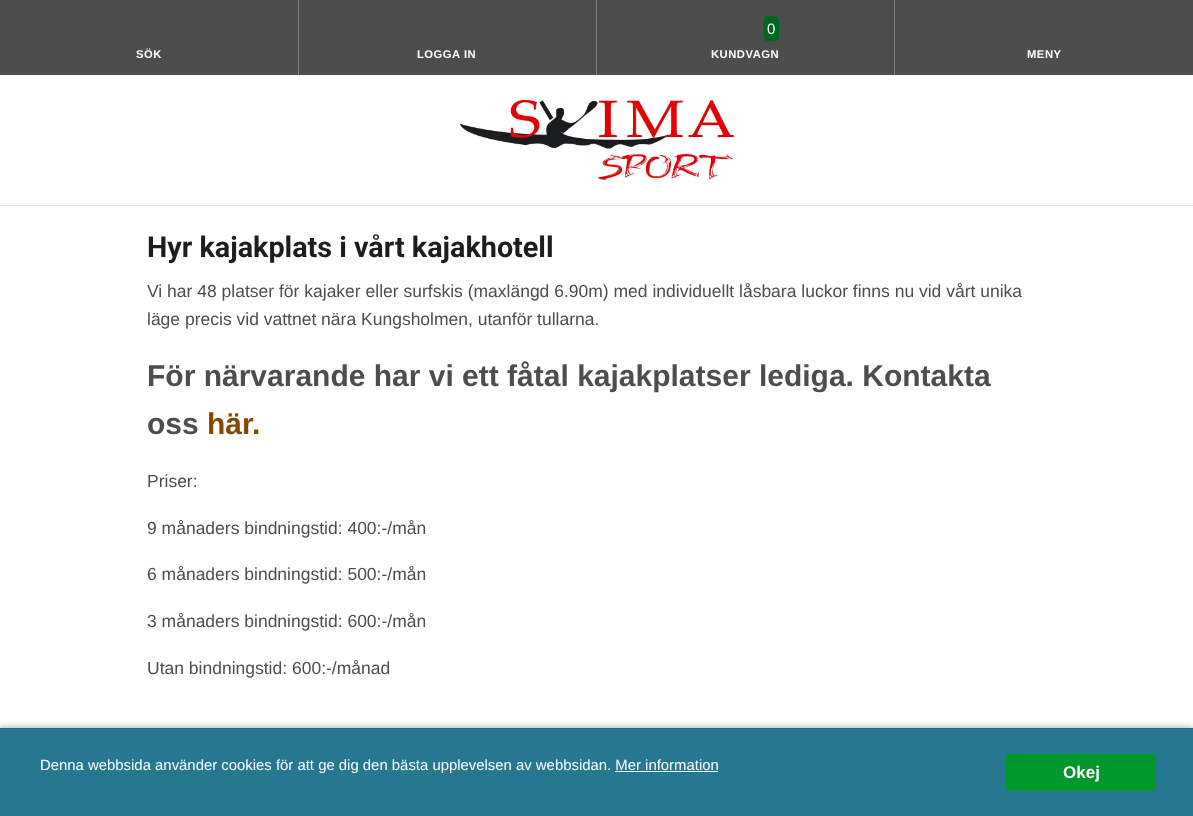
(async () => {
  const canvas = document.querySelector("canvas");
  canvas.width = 1193;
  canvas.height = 816;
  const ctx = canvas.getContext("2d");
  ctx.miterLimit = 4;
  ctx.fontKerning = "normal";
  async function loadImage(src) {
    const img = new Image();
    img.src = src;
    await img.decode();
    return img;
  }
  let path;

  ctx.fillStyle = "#ffffff";
  ctx.fillRect(0, 0, 1193, 816);
  for (const [x, y, w, h, color] of [
    [0, 205, 1193, 1, "#e1e1e1"],
    [0, 0, 1193, 75, "#4d4d4d"],
    [298, 0, 1, 75, "#808080"],
    [596, 0, 1, 75, "#808080"],
    [894, 0, 1, 75, "#808080"],
  ]) {
    ctx.fillStyle = color;
    ctx.fillRect(x, y, w, h);
  }
  ctx.fillStyle = "#00661f";
  path = new Path2D("M767 16L776.5 16.5C780 17.5 779 26.5 779 29C779 41.5 780 42 767 41C762.5 41 764 31 764 29C764 27 762.5 16 767 16Z");
  ctx.fill(path);
  ctx.drawImage(await loadImage("img/1.png"), 460, 100, 274, 80);
  ctx.fillStyle = "#999999";
  ctx.filter = "blur(3px)";
  ctx.beginPath();
  ctx.rect(0, 728, 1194, 88);
  ctx.fill();
  ctx.filter = "none";
  for (const [x, y, w, h, color] of [
    [0, 729, 1193, 87, "#257890"],
    [0, 728, 1193, 1, "#206a7f"],
    [615, 771, 103, 1, "#ffffff"],
  ]) {
    ctx.fillStyle = color;
    ctx.fillRect(x, y, w, h);
  }
  ctx.fillStyle = "#00982d";
  ctx.beginPath();
  ctx.roundRect(1006, 754, 150, 37, 4);
  ctx.fill();
  ctx.letterSpacing = "0.5px";
  ctx.font = "bold 11.25px Liberation Sans";
  ctx.fillStyle = "#ffffff";
  ctx.fillText("SÖK", 136, 58);
  ctx.fillText("LOGGA IN", 417, 58);
  ctx.letterSpacing = "0px";
  ctx.font = "15px Liberation Sans";
  ctx.fillText("0", 767, 34);
  ctx.letterSpacing = "0.5px";
  ctx.font = "bold 11.25px Liberation Sans";
  ctx.fillText("KUNDVAGN", 711, 58);
  ctx.fillText("MENY", 1027, 58);
  ctx.letterSpacing = "0px";
  ctx.font = "bold 28.75px Roboto";
  ctx.fillStyle = "#1d1d1d";
  ctx.fillText("Hyr kajakplats i vårt kajakhotell", 147, 257);
  ctx.font = "17.5px Liberation Sans";
  ctx.fillStyle = "#4d4d4d";
  ctx.fillText("Vi har 48 platser för kajaker eller surfskis (maxlängd 6.90m) med individuellt låsbara luckor finns nu vid vårt unika", 147, 297);
  ctx.fillText("läge precis vid vattnet nära Kungsholmen, utanför tullarna.", 147, 325);
  ctx.font = "bold 30px Liberation Sans";
  ctx.fillText("För närvarande har vi ett fåtal kajakplatser lediga. Kontakta", 147, 386);
  ctx.fillText("oss", 147, 434);
  ctx.fillStyle = "#854700";
  ctx.fillText("här.", 207, 434);
  ctx.font = "17.5px Liberation Sans";
  ctx.fillStyle = "#4d4d4d";
  for (const [text, x, y] of [
    ["Priser:", 147, 487],
    ["9 månaders bindningstid: 400:-/mån", 147, 534],
    ["6 månaders bindningstid: 500:-/mån", 147, 580],
    ["3 månaders bindningstid: 600:-/mån", 147, 627],
    ["Utan bindningstid: 600:-/månad", 147, 674],
  ]) {
    ctx.fillText(text, x, y);
  }
  ctx.font = "14.9px Liberation Sans";
  ctx.fillStyle = "#ffffff";
  ctx.fillText("Denna webbsida använder cookies för att ge dig den bästa upplevelsen av webbsidan. Mer information", 40, 770);
  ctx.font = "bold 17px Liberation Sans";
  ctx.fillText("Okej", 1063, 778);
})();
